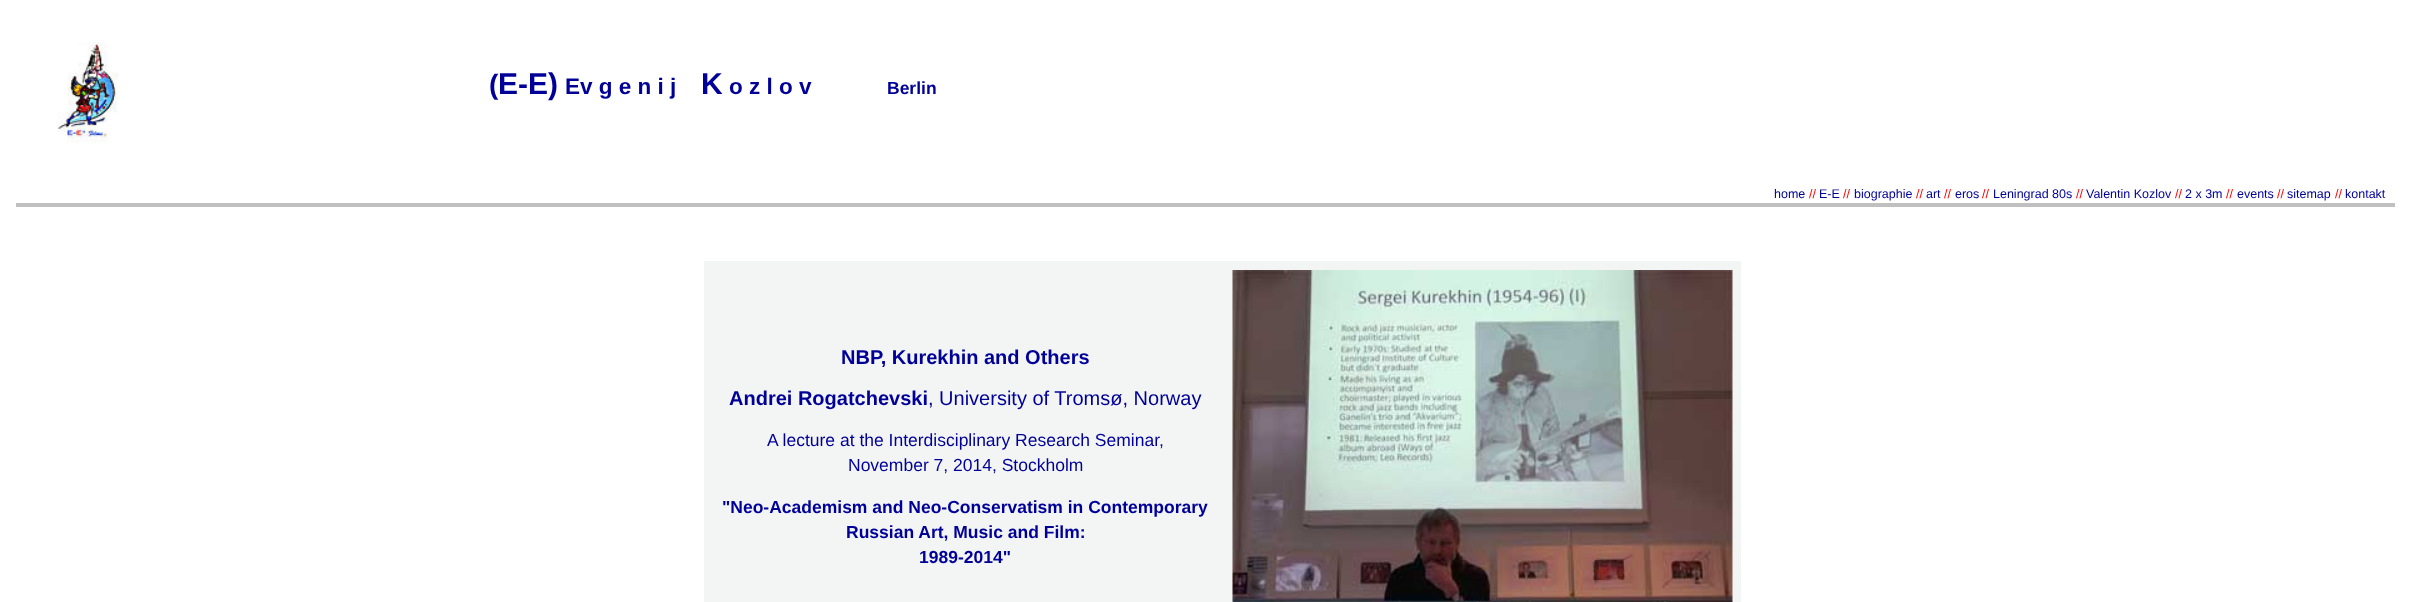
(async () => {
  const canvas = document.querySelector("canvas");
  canvas.width = 2411;
  canvas.height = 602;
  const ctx = canvas.getContext("2d");
  ctx.miterLimit = 4;
  ctx.fontKerning = "normal";
  async function loadImage(src) {
    const img = new Image();
    img.src = src;
    await img.decode();
    return img;
  }

  ctx.fillStyle = "#ffffff";
  ctx.fillRect(0, 0, 2411, 602);
  ctx.drawImage(await loadImage("img/1.png"), 57, 42, 61, 101);
  ctx.fillStyle = "#c0c0c0";
  ctx.fillRect(16, 203, 2379, 4);
  ctx.fillStyle = "#f3f5f5";
  ctx.fillRect(704, 261, 1037, 341);
  ctx.drawImage(await loadImage("img/2.png"), 1232, 270, 501, 332);
  ctx.font = "bold 28px Liberation Sans";
  ctx.fillStyle = "#000099";
  ctx.fillText("(", 489, 94);
  ctx.font = "bold 30px Liberation Sans";
  ctx.fillText("E-E)", 498, 94);
  ctx.font = "bold 22.5px Liberation Sans";
  ctx.fillText("Ev g e n i j", 565, 94);
  ctx.font = "bold 30px Liberation Sans";
  ctx.fillText("K", 701, 94);
  ctx.font = "bold 22.5px Liberation Sans";
  ctx.fillText("o z l o v", 729, 94);
  ctx.font = "bold 17.5px Liberation Sans";
  ctx.fillText("Berlin", 887, 94);
  ctx.font = "12.5px Liberation Sans";
  ctx.fillText("home", 1774, 198);
  ctx.fillStyle = "#ff0000";
  ctx.fillText("//", 1809, 198);
  ctx.fillStyle = "#000099";
  ctx.fillText("E-E", 1819, 198);
  ctx.fillStyle = "#ff0000";
  ctx.fillText("//", 1843, 198);
  ctx.fillStyle = "#000099";
  ctx.fillText("biographie", 1854, 198);
  ctx.fillStyle = "#ff0000";
  ctx.fillText("//", 1916, 198);
  ctx.fillStyle = "#000099";
  ctx.fillText("art", 1926, 198);
  ctx.fillStyle = "#ff0000";
  ctx.fillText("//", 1944, 198);
  ctx.fillStyle = "#000099";
  ctx.fillText("eros", 1955, 198);
  ctx.fillStyle = "#ff0000";
  ctx.fillText("//", 1982, 198);
  ctx.fillStyle = "#000099";
  ctx.fillText("Leningrad 80s", 1993, 198);
  ctx.fillStyle = "#ff0000";
  ctx.fillText("//", 2076, 198);
  ctx.fillStyle = "#000099";
  ctx.fillText("Valentin Kozlov", 2086, 198);
  ctx.fillStyle = "#ff0000";
  ctx.fillText("//", 2175, 198);
  ctx.fillStyle = "#000099";
  ctx.fillText("2 x 3m", 2185, 198);
  ctx.fillStyle = "#ff0000";
  ctx.fillText("//", 2226, 198);
  ctx.fillStyle = "#000099";
  ctx.fillText("events", 2237, 198);
  ctx.fillStyle = "#ff0000";
  ctx.fillText("//", 2277, 198);
  ctx.fillStyle = "#000099";
  ctx.fillText("sitemap", 2287, 198);
  ctx.fillStyle = "#ff0000";
  ctx.fillText("//", 2335, 198);
  ctx.fillStyle = "#000099";
  ctx.fillText("kontakt", 2345, 198);
  ctx.font = "bold 20px Liberation Sans";
  ctx.fillText("NBP, Kurekhin and Others", 841, 364);
  ctx.fillText("Andrei Rogatchevski", 729, 405);
  ctx.font = "20px Liberation Sans";
  ctx.fillText(", University of Tromsø, Norway", 928, 405);
  ctx.font = "17.5px Liberation Sans";
  ctx.fillText("A lecture at the Interdisciplinary Research Seminar,", 767, 446);
  ctx.fillText("November 7, 2014, Stockholm", 848, 471);
  ctx.font = "bold 17.5px Liberation Sans";
  for (const [text, x, y] of [
    ["\"Neo-Academism and Neo-Conservatism in Contemporary", 722, 513],
    ["Russian Art, Music and Film:", 846, 538],
    ["1989-2014\"", 919, 563],
  ]) {
    ctx.fillText(text, x, y);
  }
})();
